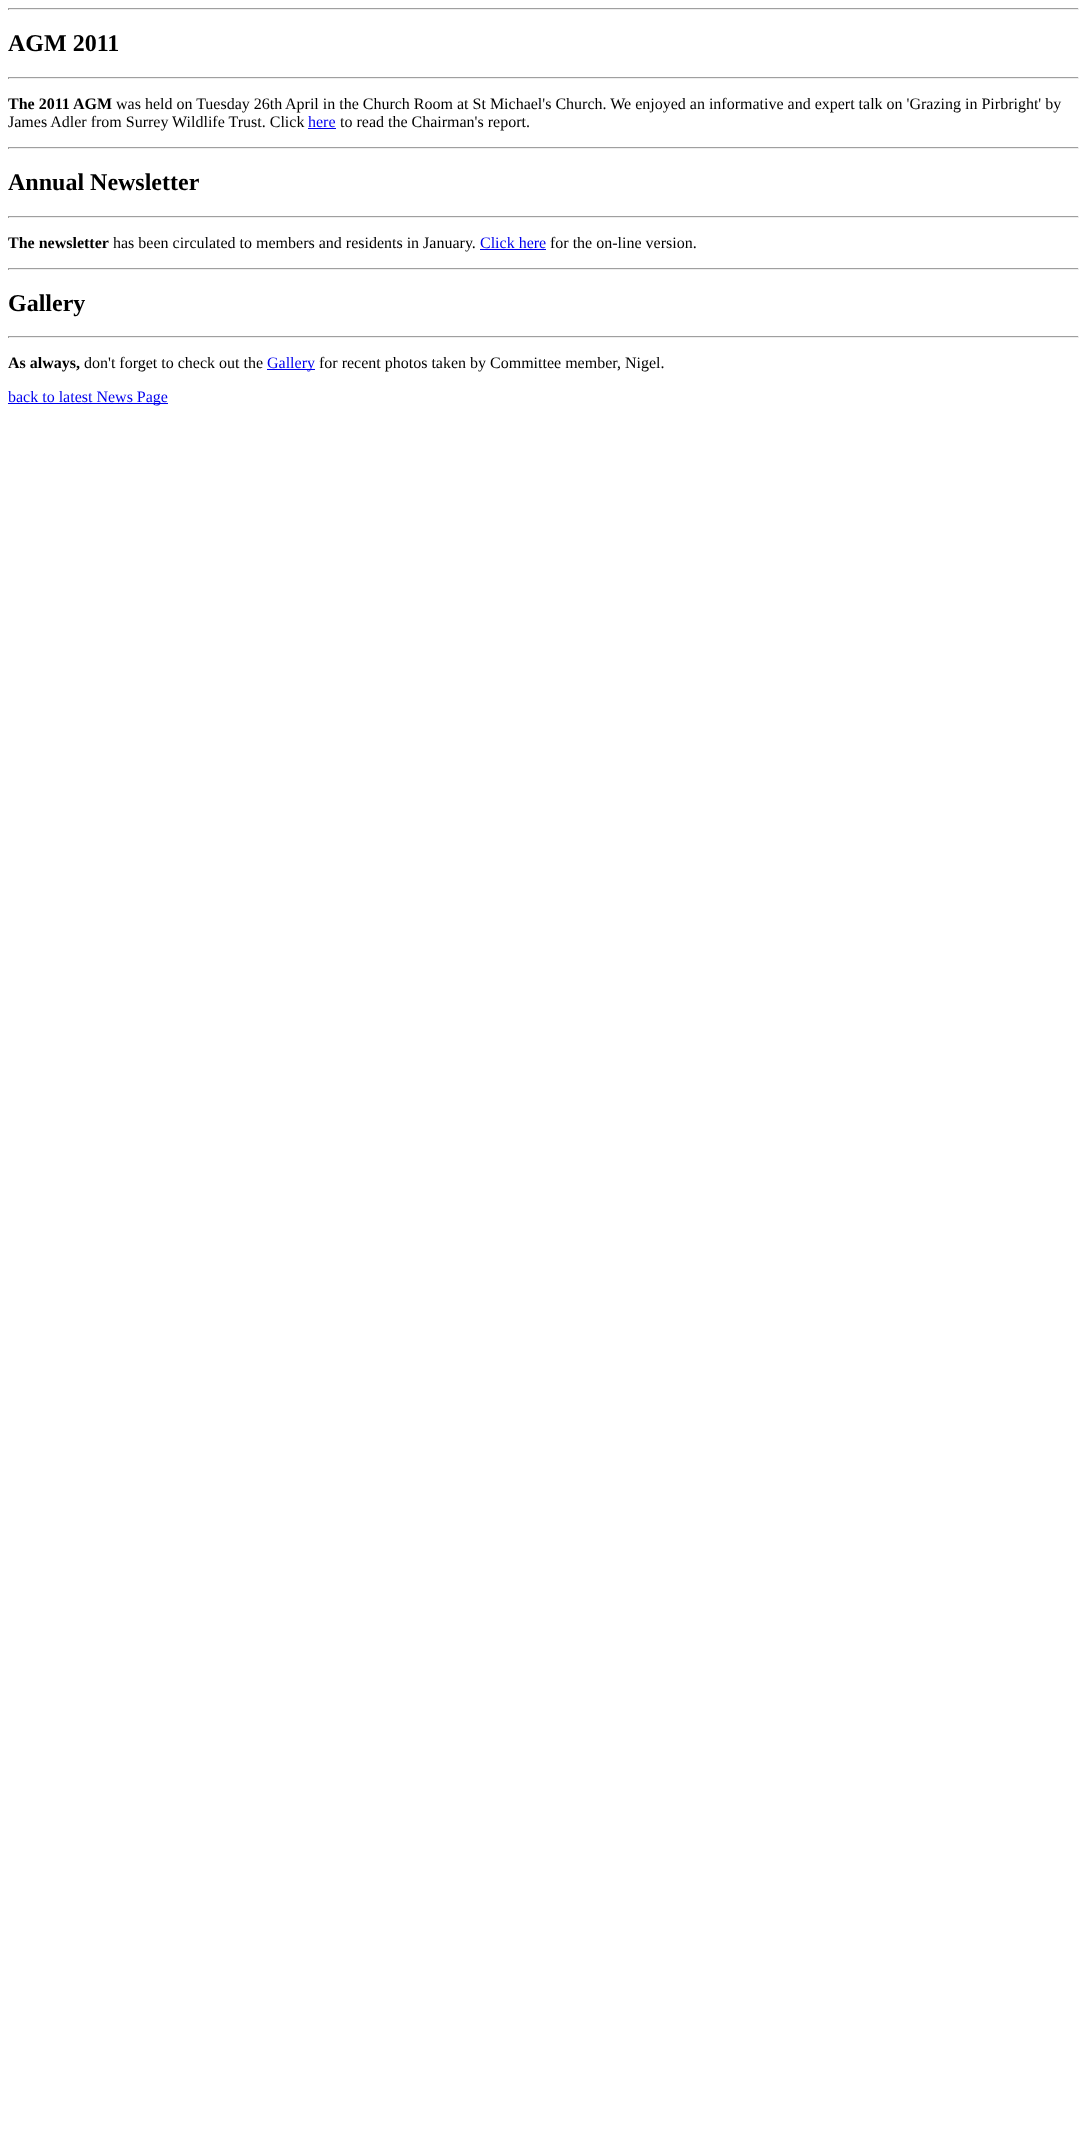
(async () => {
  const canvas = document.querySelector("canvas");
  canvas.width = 1087;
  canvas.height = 2140;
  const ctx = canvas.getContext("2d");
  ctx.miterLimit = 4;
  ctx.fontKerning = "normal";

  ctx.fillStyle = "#ffffff";
  ctx.fillRect(0, 0, 1087, 2140);
  for (const [x, y, w, h, color] of [
    [8, 8, 1071, 1, "#9f9f9f"],
    [1078, 8, 1, 2, "#eeeeee"],
    [8, 9, 1071, 1, "#eeeeee"],
    [8, 8, 1, 2, "#9f9f9f"],
    [8, 77, 1071, 1, "#9f9f9f"],
    [1078, 77, 1, 2, "#eeeeee"],
    [8, 78, 1071, 1, "#eeeeee"],
    [8, 77, 1, 2, "#9f9f9f"],
    [308, 128, 28, 1, "#0000ee"],
    [8, 147, 1071, 1, "#9f9f9f"],
    [1078, 147, 1, 2, "#eeeeee"],
    [8, 148, 1071, 1, "#eeeeee"],
    [8, 147, 1, 2, "#9f9f9f"],
    [8, 216, 1071, 1, "#9f9f9f"],
    [1078, 216, 1, 2, "#eeeeee"],
    [8, 217, 1071, 1, "#eeeeee"],
    [8, 216, 1, 2, "#9f9f9f"],
    [480, 249, 66, 1, "#0000ee"],
    [8, 268, 1071, 1, "#9f9f9f"],
    [1078, 268, 1, 2, "#eeeeee"],
    [8, 269, 1071, 1, "#eeeeee"],
    [8, 268, 1, 2, "#9f9f9f"],
    [8, 336, 1071, 1, "#9f9f9f"],
    [1078, 336, 1, 2, "#eeeeee"],
    [8, 337, 1071, 1, "#eeeeee"],
    [8, 336, 1, 2, "#9f9f9f"],
    [267, 369, 48, 1, "#0000ee"],
    [8, 403, 160, 1, "#0000ee"],
  ]) {
    ctx.fillStyle = color;
    ctx.fillRect(x, y, w, h);
  }
  ctx.font = "bold 24px Liberation Serif";
  ctx.fillStyle = "#000000";
  ctx.fillText("AGM 2011", 8, 51);
  ctx.font = "bold 16px Liberation Serif";
  ctx.fillText("The 2011 AGM", 8, 109);
  ctx.font = "16px Liberation Serif";
  for (const [text, x, y] of [
    ["was held on Tuesday 26th", 116, 109],
    ["April in the Church Room at St Michael's Church. We enjoyed an informative and expert talk on 'Grazing in Pirbright' by", 285, 109],
    ["James Adler from Surrey Wildlife Trust. Click", 8, 127],
  ]) {
    ctx.fillText(text, x, y);
  }
  ctx.fillStyle = "#0000ee";
  ctx.fillText("here", 308, 127);
  ctx.fillStyle = "#000000";
  ctx.fillText("to read the Chairman's report.", 340, 127);
  ctx.font = "bold 24px Liberation Serif";
  ctx.fillText("Annual Newsletter", 8, 190);
  ctx.font = "bold 16px Liberation Serif";
  ctx.fillText("The newsletter", 8, 248);
  ctx.font = "16px Liberation Serif";
  ctx.fillText("has been circulated to members and residents in January.", 113, 248);
  ctx.fillStyle = "#0000ee";
  ctx.fillText("Click here", 480, 248);
  ctx.fillStyle = "#000000";
  ctx.fillText("for the on-line version.", 550, 248);
  ctx.font = "bold 24px Liberation Serif";
  ctx.fillText("Gallery", 8, 311);
  ctx.font = "bold 16px Liberation Serif";
  ctx.fillText("As always,", 8, 368);
  ctx.font = "16px Liberation Serif";
  ctx.fillText("don't forget to check out the", 84, 368);
  ctx.fillStyle = "#0000ee";
  ctx.fillText("Gallery", 267, 368);
  ctx.fillStyle = "#000000";
  ctx.fillText("for recent photos taken by Committee member, Nigel.", 319, 368);
  ctx.fillStyle = "#0000ee";
  ctx.fillText("back to latest News Page", 8, 402);
})();
